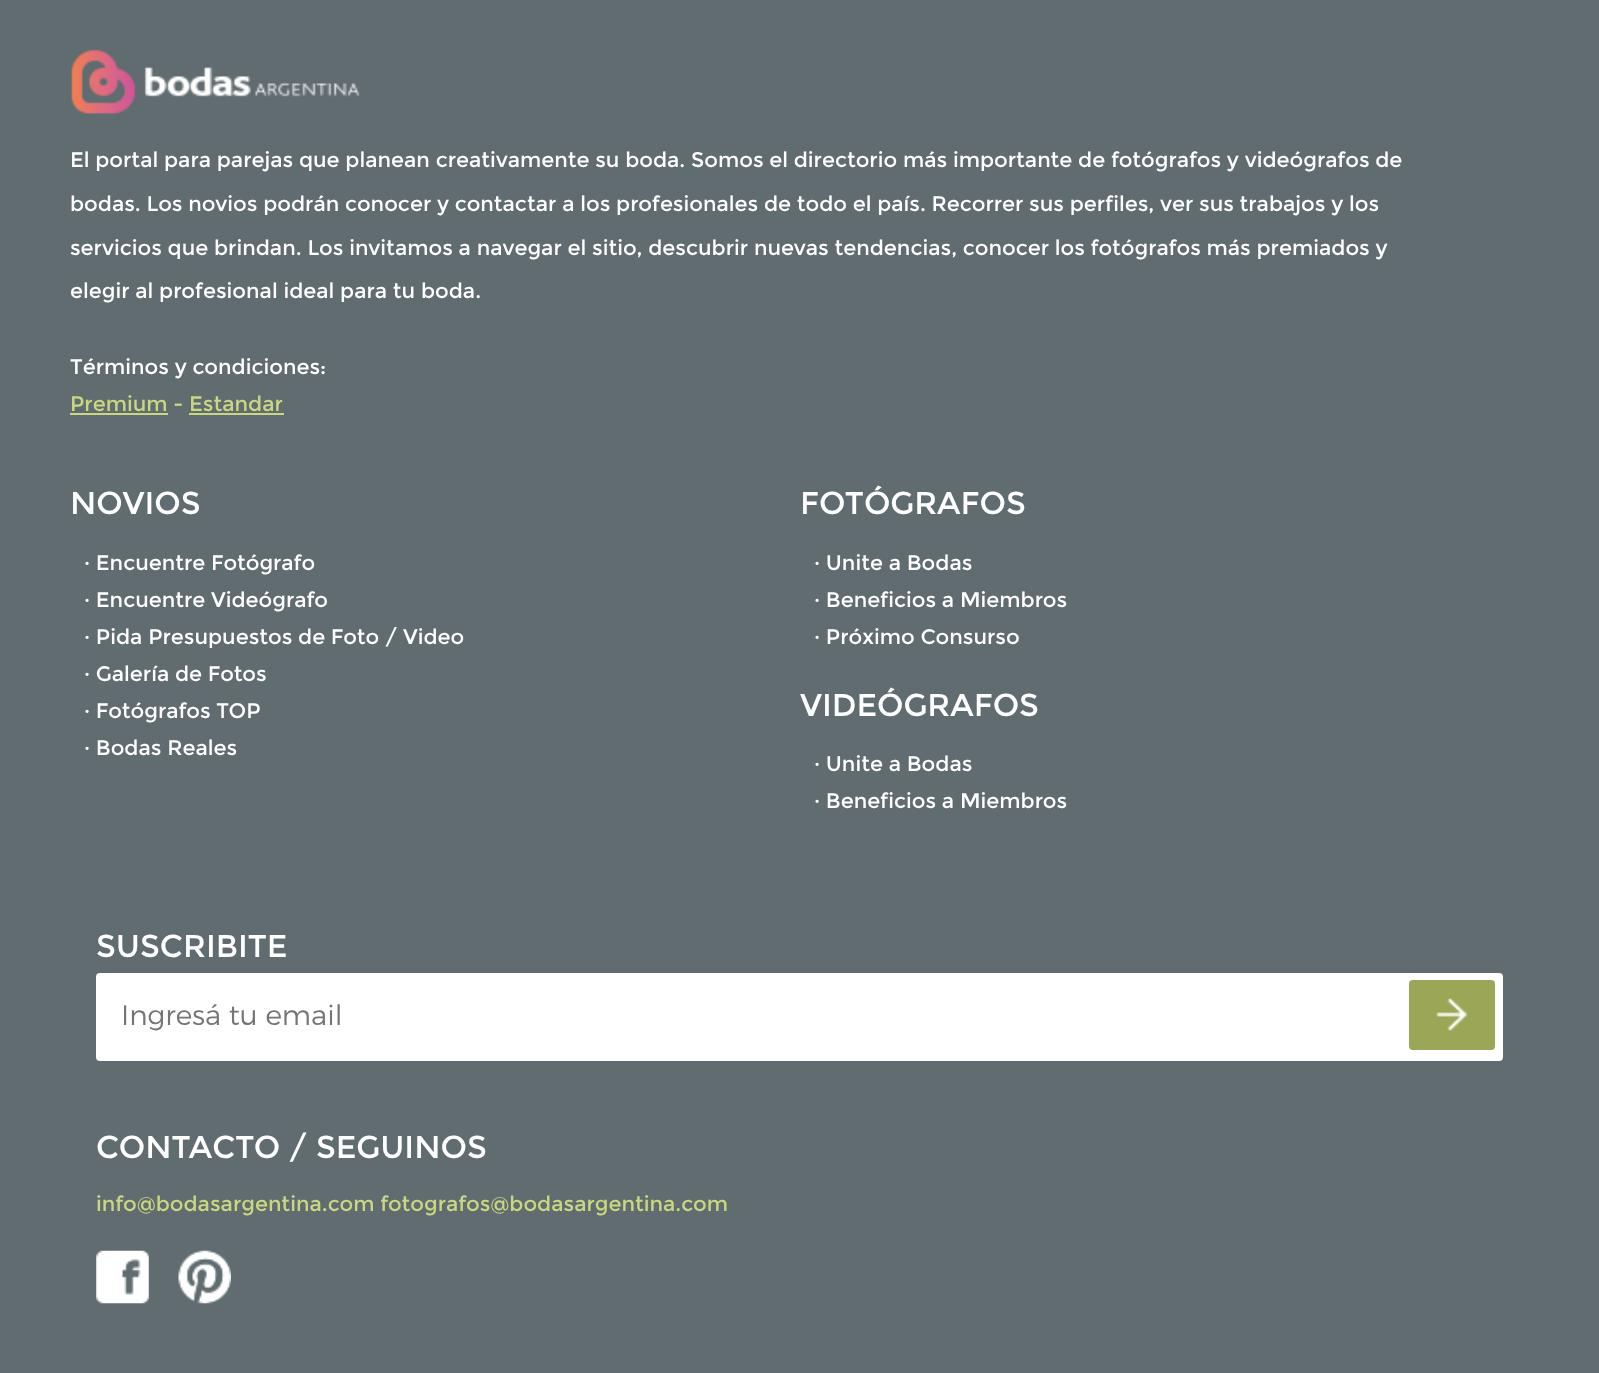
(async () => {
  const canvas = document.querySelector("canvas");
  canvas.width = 1599;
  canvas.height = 1373;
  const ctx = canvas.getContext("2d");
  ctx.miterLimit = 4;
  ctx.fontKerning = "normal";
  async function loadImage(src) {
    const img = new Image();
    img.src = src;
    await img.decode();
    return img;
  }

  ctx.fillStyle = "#616c71";
  ctx.fillRect(0, 0, 1599, 1373);
  ctx.drawImage(await loadImage("img/1.png"), 71, 49, 289, 65);
  ctx.fillStyle = "#cbd780";
  ctx.fillRect(70, 413, 98, 2);
  ctx.fillRect(189, 413, 95, 2);
  ctx.fillStyle = "#ffffff";
  ctx.beginPath();
  ctx.roundRect(96, 973, 1407, 88, 4);
  ctx.fill();
  ctx.fillStyle = "#9ba657";
  ctx.beginPath();
  ctx.roundRect(1409, 980, 86, 70, 4);
  ctx.fill();
  ctx.drawImage(await loadImage("img/2.png"), 1436, 998, 31, 33);
  ctx.drawImage(await loadImage("img/3.png"), 96, 1250, 53, 54);
  ctx.drawImage(await loadImage("img/4.png"), 178, 1250, 53, 54);
  ctx.font = "21px Montserrat";
  ctx.fillStyle = "#ffffff";
  for (const [text, x, y] of [
    ["El portal para parejas que planean creativamente su boda. Somos el directorio más importante de fotógrafos y videógrafos de", 70, 167],
    ["bodas. Los novios podrán conocer y contactar a los profesionales de todo el país. Recorrer sus perfiles, ver sus trabajos y los", 70, 211],
    ["servicios que brindan. Los invitamos a navegar el sitio, descubrir nuevas tendencias, conocer los fotógrafos más premiados y", 70, 255],
    ["elegir al profesional ideal para tu boda.", 70, 298],
    ["Términos y condiciones:", 70, 374],
  ]) {
    ctx.fillText(text, x, y);
  }
  ctx.fillStyle = "#cbd780";
  ctx.fillText("Premium - Estandar", 70, 411);
  ctx.font = "31.5px Montserrat";
  ctx.fillStyle = "#ffffff";
  ctx.fillText("NOVIOS", 70, 514);
  ctx.font = "21px Montserrat";
  for (const [text, x, y] of [
    ["· Encuentre Fotógrafo", 84, 570],
    ["· Encuentre Videógrafo", 84, 607],
    ["· Pida Presupuestos de Foto / Video", 84, 644],
    ["· Galería de Fotos", 84, 681],
    ["· Fotógrafos TOP", 84, 718],
    ["· Bodas Reales", 84, 755],
  ]) {
    ctx.fillText(text, x, y);
  }
  ctx.font = "31.5px Montserrat";
  ctx.fillText("FOTÓGRAFOS", 800, 514);
  ctx.font = "21px Montserrat";
  for (const [text, x, y] of [
    ["· Unite a Bodas", 814, 570],
    ["· Beneficios a Miembros", 814, 607],
    ["· Próximo Consurso", 814, 644],
  ]) {
    ctx.fillText(text, x, y);
  }
  ctx.font = "31.5px Montserrat";
  ctx.fillText("VIDEÓGRAFOS", 800, 716);
  ctx.font = "21px Montserrat";
  ctx.fillText("· Unite a Bodas", 814, 771);
  ctx.fillText("· Beneficios a Miembros", 814, 808);
  ctx.font = "31.5px Montserrat";
  ctx.fillText("SUSCRIBITE", 96, 957);
  ctx.font = "300 28px Montserrat";
  ctx.fillStyle = "#757575";
  ctx.fillText("Ingresá tu email", 121, 1025);
  ctx.font = "31.5px Montserrat";
  ctx.fillStyle = "#ffffff";
  ctx.fillText("CONTACTO / SEGUINOS", 96, 1158);
  ctx.font = "21px Montserrat";
  ctx.fillStyle = "#cbd780";
  ctx.fillText("info@bodasargentina.com fotografos@bodasargentina.com", 96, 1211);
})();
